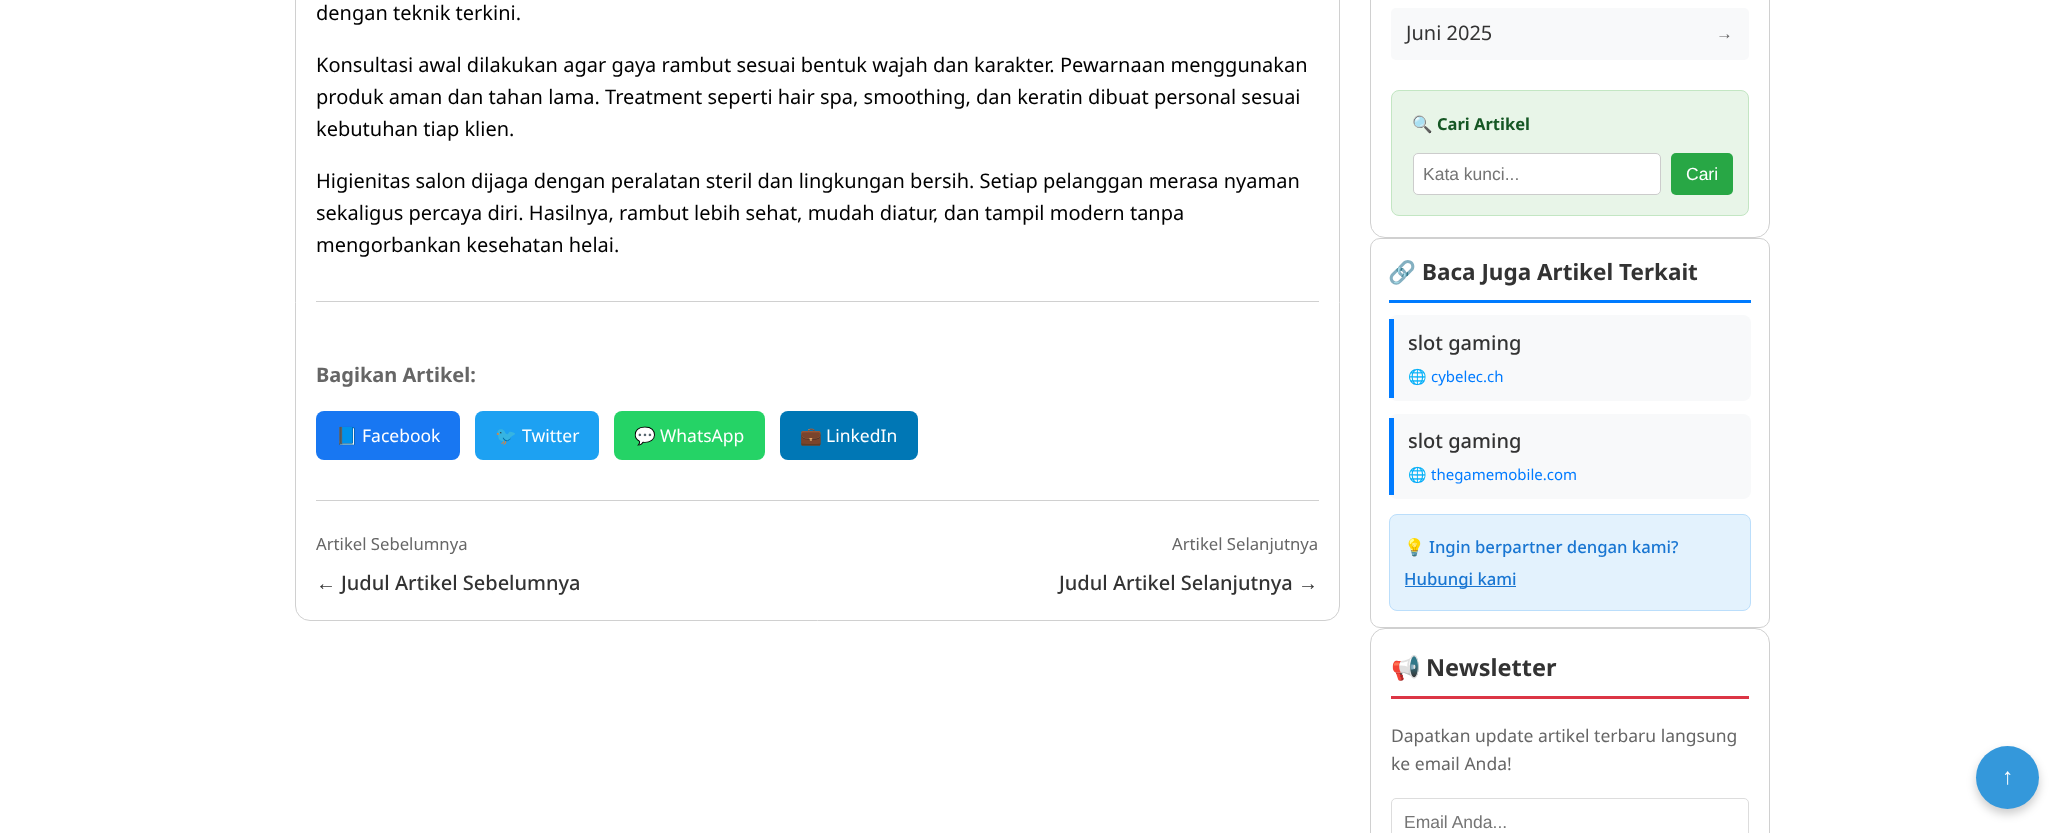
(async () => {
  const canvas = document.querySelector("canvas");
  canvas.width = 2063;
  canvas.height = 833;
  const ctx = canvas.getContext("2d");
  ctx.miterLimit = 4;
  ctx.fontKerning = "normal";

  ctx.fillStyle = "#ffffff";
  ctx.fillRect(0, 0, 2063, 833);
  ctx.beginPath();
  ctx.roundRect(295.5, -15.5, 1044, 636, 14.5);
  ctx.strokeStyle = "#d0d0d0";
  ctx.stroke();
  ctx.fillStyle = "#d0d0d0";
  ctx.fillRect(316, 301, 1003, 1);
  ctx.fillStyle = "#1877f2";
  ctx.beginPath();
  ctx.roundRect(316, 411, 144, 49, 8);
  ctx.fill();
  ctx.fillStyle = "#1da1f2";
  ctx.beginPath();
  ctx.roundRect(475, 411, 124, 49, 8);
  ctx.fill();
  ctx.fillStyle = "#25d366";
  ctx.beginPath();
  ctx.roundRect(614, 411, 151, 49, 8);
  ctx.fill();
  ctx.fillStyle = "#0077b5";
  ctx.beginPath();
  ctx.roundRect(780, 411, 138, 49, 8);
  ctx.fill();
  ctx.fillStyle = "#d0d0d0";
  ctx.fillRect(316, 500, 1003, 1);
  ctx.beginPath();
  ctx.roundRect(1370.5, -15.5, 399, 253, 14.5);
  ctx.stroke();
  ctx.fillStyle = "#f8f9fa";
  ctx.beginPath();
  ctx.roundRect(1391, 8, 358, 52, 5);
  ctx.fill();
  ctx.fillStyle = "#e8f5e8";
  ctx.beginPath();
  ctx.roundRect(1391.5, 90.5, 357, 125, 7.5);
  ctx.fill();
  ctx.strokeStyle = "#c3e6c3";
  ctx.stroke();
  ctx.fillStyle = "#ffffff";
  ctx.beginPath();
  ctx.roundRect(1413.5, 153.5, 247, 41, 4.5);
  ctx.fill();
  ctx.strokeStyle = "#cccccc";
  ctx.stroke();
  ctx.fillStyle = "#28a745";
  ctx.beginPath();
  ctx.roundRect(1671, 153, 62, 42, 5);
  ctx.fill();
  ctx.beginPath();
  ctx.roundRect(1370.5, 238.5, 399, 389, 9.5);
  ctx.strokeStyle = "#d0d0d0";
  ctx.stroke();
  ctx.fillStyle = "#007bff";
  ctx.fillRect(1389, 300, 362, 3);
  ctx.fillStyle = "#f8f9fa";
  ctx.beginPath();
  ctx.roundRect(1389, 315, 362, 86, 8);
  ctx.fill();
  ctx.fillStyle = "#007bff";
  ctx.fillRect(1389, 319, 5, 79);
  ctx.fillStyle = "#f8f9fa";
  ctx.beginPath();
  ctx.roundRect(1389, 414, 362, 85, 8);
  ctx.fill();
  ctx.fillStyle = "#007bff";
  ctx.fillRect(1389, 418, 5, 77);
  ctx.fillStyle = "#e3f2fd";
  ctx.beginPath();
  ctx.roundRect(1389.5, 514.5, 361, 96, 7.5);
  ctx.fill();
  ctx.strokeStyle = "#bbdefb";
  ctx.stroke();
  ctx.fillStyle = "#1976d2";
  ctx.fillRect(1405, 586, 111, 1);
  ctx.beginPath();
  ctx.roundRect(1370.5, 628.5, 399, 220, 14.5);
  ctx.strokeStyle = "#d0d0d0";
  ctx.stroke();
  ctx.fillStyle = "#dc3545";
  ctx.fillRect(1391, 696, 358, 3);
  ctx.beginPath();
  ctx.roundRect(1391.5, 798.5, 357, 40, 4.5);
  ctx.strokeStyle = "#dddddd";
  ctx.stroke();
  ctx.fillStyle = "rgba(0, 0, 0, 0.2)";
  ctx.filter = "blur(5px)";
  ctx.beginPath();
  ctx.roundRect(1976, 751, 63, 63, 31.5);
  ctx.fill();
  ctx.filter = "none";
  ctx.fillStyle = "#3498db";
  ctx.beginPath();
  ctx.arc(2007.5, 777.5, 31.5, 0, Math.PI * 2);
  ctx.fill();
  ctx.font = "20px Noto Sans";
  ctx.fillStyle = "#000000";
  for (const [text, x, y] of [
    ["dengan teknik terkini.", 316, 20],
    ["Konsultasi awal dilakukan agar gaya rambut sesuai bentuk wajah dan karakter. Pewarnaan menggunakan", 316, 72],
    ["produk aman dan tahan lama. Treatment seperti hair spa, smoothing, dan keratin dibuat personal sesuai", 316, 104],
    ["kebutuhan tiap klien.", 316, 136],
    ["Higienitas salon dijaga dengan peralatan steril dan lingkungan bersih. Setiap pelanggan merasa nyaman", 316, 188],
    ["sekaligus percaya diri. Hasilnya, rambut lebih sehat, mudah diatur, dan tampil modern tanpa", 316, 220],
    ["mengorbankan kesehatan helai.", 316, 252],
  ]) {
    ctx.fillText(text, x, y);
  }
  ctx.font = "bold 20px Noto Sans";
  ctx.fillStyle = "#666666";
  ctx.fillText("Bagikan Artikel:", 316, 382);
  ctx.font = "17.5px Noto Color Emoji";
  ctx.fillStyle = "#ffffff";
  ctx.fillText("📘", 336, 442);
  ctx.font = "17.5px Noto Sans";
  ctx.fillText("Facebook", 362, 442);
  ctx.font = "17.5px Noto Color Emoji";
  ctx.fillText("🐦", 495, 442);
  ctx.font = "17.5px Noto Sans";
  ctx.fillText("Twitter", 522, 442);
  ctx.font = "17.5px Noto Color Emoji";
  ctx.fillText("💬", 634, 442);
  ctx.font = "17.5px Noto Sans";
  ctx.fillText("WhatsApp", 660, 442);
  ctx.font = "17.5px Noto Color Emoji";
  ctx.fillText("💼", 800, 442);
  ctx.font = "17.5px Noto Sans";
  ctx.fillText("LinkedIn", 826, 442);
  ctx.font = "16.7px Noto Sans";
  ctx.fillStyle = "#666666";
  ctx.fillText("Artikel Sebelumnya", 316, 550);
  ctx.font = "20px Liberation Sans";
  ctx.fillStyle = "#333333";
  ctx.fillText("←", 316, 590);
  ctx.font = "500 20px Noto Sans";
  ctx.fillText("Judul Artikel Sebelumnya", 341, 590);
  ctx.font = "16.7px Noto Sans";
  ctx.fillStyle = "#666666";
  ctx.fillText("Artikel Selanjutnya", 1172, 550);
  ctx.font = "500 20px Noto Sans";
  ctx.fillStyle = "#333333";
  ctx.fillText("Judul Artikel Selanjutnya", 1059, 590);
  ctx.font = "20px Liberation Sans";
  ctx.fillText("→", 1298, 590);
  ctx.font = "20px Noto Sans";
  ctx.fillText("Juni 2025", 1406, 40);
  ctx.font = "16.7px Liberation Sans";
  ctx.fillStyle = "#666666";
  ctx.fillText("→", 1716, 39);
  ctx.font = "bold 16.5px Noto Color Emoji";
  ctx.fillStyle = "#155724";
  ctx.fillText("🔍", 1412, 130);
  ctx.font = "bold 16.5px Noto Sans";
  ctx.fillText("Cari Artikel", 1437, 130);
  ctx.font = "17.5px Liberation Sans";
  ctx.fillStyle = "#757575";
  ctx.fillText("Kata kunci...", 1423, 180);
  ctx.fillStyle = "#ffffff";
  ctx.fillText("Cari", 1686, 180);
  ctx.font = "bold 22.5px Noto Color Emoji";
  ctx.fillStyle = "#333333";
  ctx.fillText("🔗", 1388, 280);
  ctx.font = "bold 22.5px Noto Sans";
  ctx.fillText("Baca Juga Artikel Terkait", 1422, 280);
  ctx.font = "500 20px Noto Sans";
  ctx.fillText("slot gaming", 1408, 350);
  ctx.font = "15px Noto Color Emoji";
  ctx.fillStyle = "#007bff";
  ctx.fillText("🌐", 1408, 382);
  ctx.font = "15px Noto Sans";
  ctx.fillText("cybelec.ch", 1431, 382);
  ctx.font = "500 20px Noto Sans";
  ctx.fillStyle = "#333333";
  ctx.fillText("slot gaming", 1408, 448);
  ctx.font = "15px Noto Color Emoji";
  ctx.fillStyle = "#007bff";
  ctx.fillText("🌐", 1408, 480);
  ctx.font = "15px Noto Sans";
  ctx.fillText("thegamemobile.com", 1431, 480);
  ctx.font = "16.7px Noto Color Emoji";
  ctx.fillStyle = "#1976d2";
  ctx.fillText("💡", 1404, 553);
  ctx.font = "500 16.7px Noto Sans";
  ctx.fillText("Ingin berpartner dengan kami?", 1429, 553);
  ctx.fillText("Hubungi kami", 1404, 585);
  ctx.font = "bold 23.5px Noto Color Emoji";
  ctx.fillStyle = "#333333";
  ctx.fillText("📢", 1391, 676);
  ctx.font = "bold 23.5px Noto Sans";
  ctx.fillText("Newsletter", 1426, 676);
  ctx.font = "17.5px Noto Sans";
  ctx.fillStyle = "#666666";
  ctx.fillText("Dapatkan update artikel terbaru langsung", 1391, 742);
  ctx.fillText("ke email Anda!", 1391, 770);
  ctx.font = "17.5px Liberation Sans";
  ctx.fillStyle = "#757575";
  ctx.fillText("Email Anda...", 1404, 828);
  ctx.font = "22.5px Liberation Sans";
  ctx.fillStyle = "#ffffff";
  ctx.fillText("↑", 2002, 784);
})();
